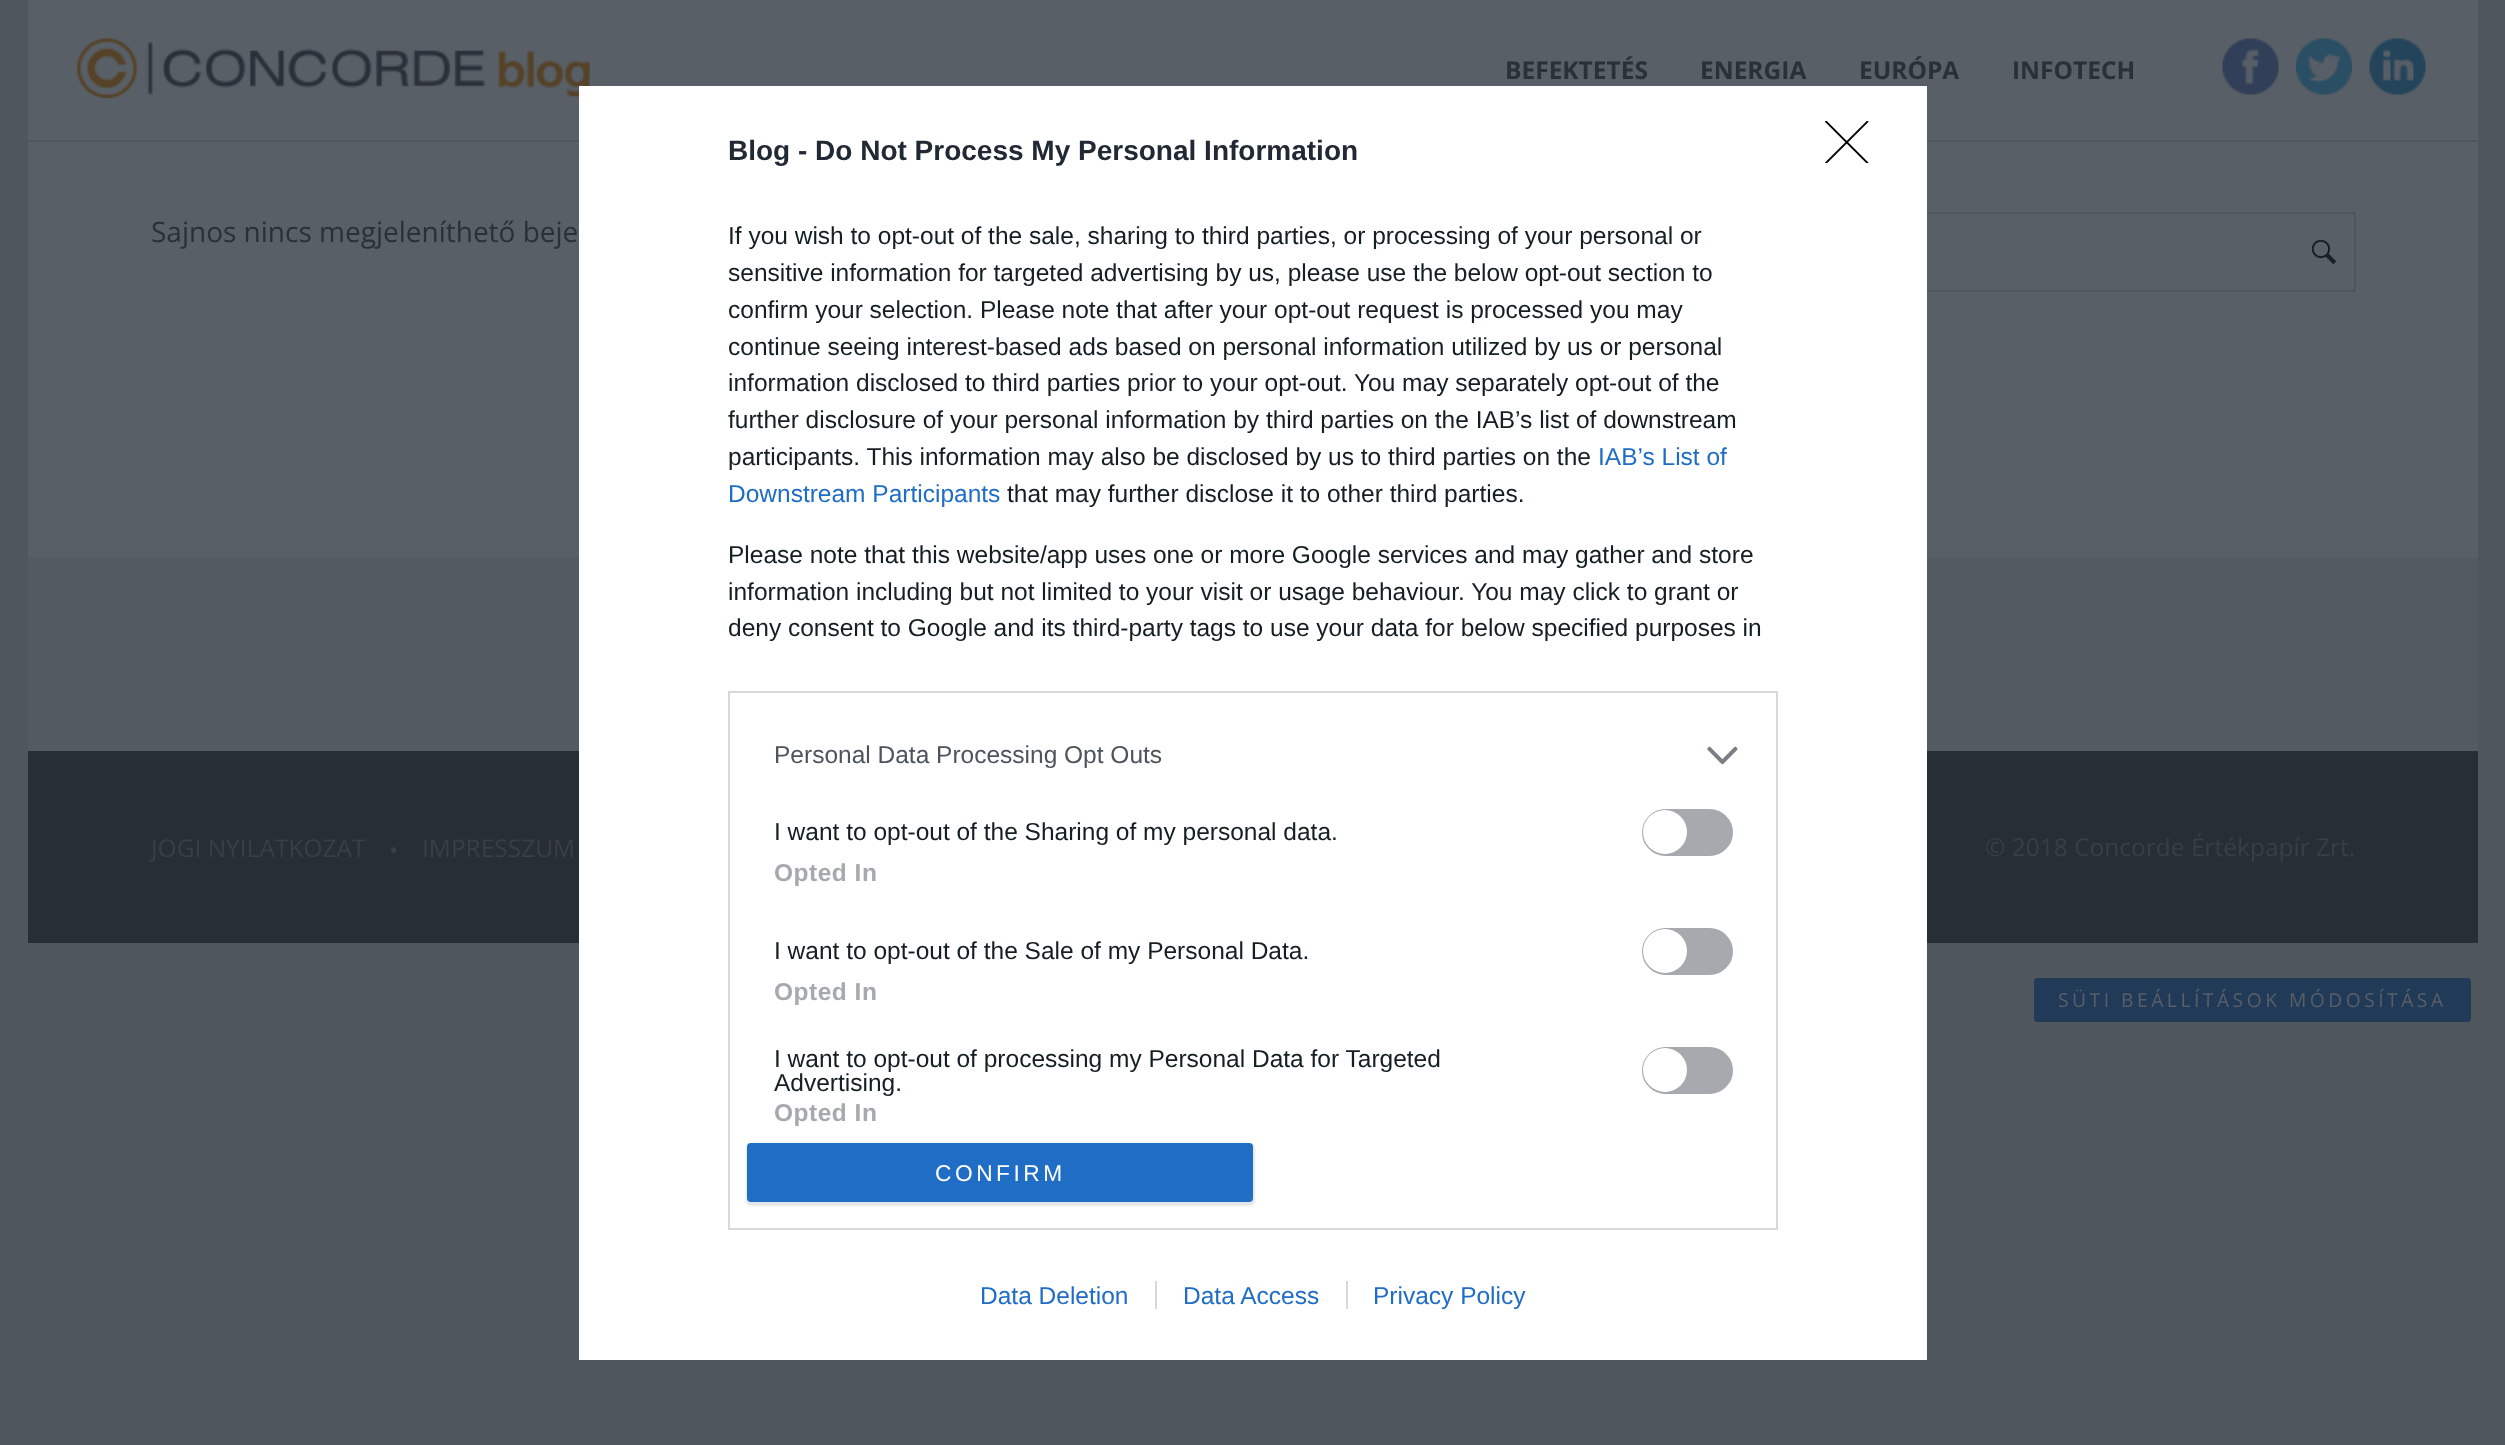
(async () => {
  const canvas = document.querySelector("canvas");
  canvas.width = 2505;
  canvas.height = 1445;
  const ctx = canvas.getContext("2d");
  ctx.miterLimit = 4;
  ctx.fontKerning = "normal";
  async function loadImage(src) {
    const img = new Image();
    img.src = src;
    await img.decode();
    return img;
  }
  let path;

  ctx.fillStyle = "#50565e";
  ctx.fillRect(0, 0, 2505, 1445);
  ctx.fillStyle = "#595f67";
  ctx.fillRect(28, 0, 2450, 140);
  ctx.drawImage(await loadImage("img/1.png"), 77, 38, 513, 60);
  ctx.drawImage(await loadImage("img/2.png"), 2222, 38, 57, 57);
  ctx.drawImage(await loadImage("img/3.png"), 2296, 38, 56, 57);
  ctx.drawImage(await loadImage("img/4.png"), 2369, 38, 57, 57);
  ctx.fillRect(28, 142, 2450, 416);
  ctx.drawImage(await loadImage("img/5.png"), 2312, 240, 24, 24);
  ctx.strokeStyle = "#50565e";
  ctx.lineWidth = 2;
  ctx.strokeRect(1657, 213, 698, 78);
  for (const [x, y, w, h, color] of [
    [28, 558, 2450, 193, "#545a62"],
    [28, 751, 2450, 192, "#282e36"],
    [579, 86, 1348, 1274, "#ffffff"],
  ]) {
    ctx.fillStyle = color;
    ctx.fillRect(x, y, w, h);
  }
  ctx.strokeStyle = "#d8d8d8";
  ctx.strokeRect(729, 692, 1048, 537);
  ctx.drawImage(await loadImage("img/6.png"), 1707, 746, 31, 19);
  ctx.fillStyle = "#a6a9ae";
  ctx.beginPath();
  ctx.roundRect(1643, 810, 89, 45, 22.5);
  ctx.fill();
  ctx.strokeStyle = "#a6a9ae";
  ctx.stroke();
  ctx.fillStyle = "#ffffff";
  ctx.beginPath();
  ctx.arc(1665, 832, 22, 0, Math.PI * 2);
  ctx.fill();
  ctx.fillStyle = "#a6a9ae";
  ctx.beginPath();
  ctx.roundRect(1643, 929, 89, 45, 22.5);
  ctx.fill();
  ctx.stroke();
  ctx.fillStyle = "#ffffff";
  ctx.beginPath();
  ctx.arc(1665, 951, 22, 0, Math.PI * 2);
  ctx.fill();
  ctx.fillStyle = "#a6a9ae";
  ctx.beginPath();
  ctx.roundRect(1643, 1048, 89, 45, 22.5);
  ctx.fill();
  ctx.stroke();
  ctx.fillStyle = "#ffffff";
  ctx.beginPath();
  ctx.arc(1665, 1070, 22, 0, Math.PI * 2);
  ctx.fill();
  ctx.fillStyle = "rgba(0, 0, 0, 0.1)";
  ctx.filter = "blur(1px)";
  ctx.beginPath();
  ctx.roundRect(746, 1143, 509, 63, 5);
  ctx.fill();
  ctx.filter = "none";
  ctx.fillStyle = "#206dc5";
  ctx.beginPath();
  ctx.roundRect(747, 1143, 506, 59, 4);
  ctx.fill();
  ctx.save();
  ctx.beginPath();
  ctx.rect(1825, 121, 44, 42);
  ctx.clip();
  path = new Path2D("M1826 121.5L1867.5 163M1867.5 121.5L1826 163");
  ctx.strokeStyle = "#000000";
  ctx.lineWidth = 1.8;
  ctx.lineCap = "round";
  ctx.lineJoin = "round";
  ctx.stroke(path);
  ctx.restore();
  ctx.fillStyle = "#d8d8d8";
  ctx.fillRect(1155, 1281, 2, 28);
  ctx.fillRect(1346, 1281, 2, 28);
  ctx.fillStyle = "#213a58";
  ctx.beginPath();
  ctx.roundRect(2034, 978, 437, 44, 4);
  ctx.fill();
  ctx.font = "bold 24.5px Open Sans";
  ctx.fillStyle = "#2a3038";
  for (const [text, x, y] of [
    ["BEFEKTETÉS", 1505, 79],
    ["ENERGIA", 1700, 79],
    ["EURÓPA", 1859, 79],
    ["INFOTECH", 2012, 79],
  ]) {
    ctx.fillText(text, x, y);
  }
  ctx.font = "28px Open Sans";
  ctx.fillText("Sajnos nincs megjeleníthető beje", 151, 242);
  ctx.font = "24.5px Open Sans";
  ctx.fillStyle = "#393f47";
  for (const [text, x, y] of [
    ["JOGI NYILATKOZAT", 151, 857],
    ["•", 389, 859],
    ["IMPRESSZUM", 422, 857],
    ["© 2018 Concorde Értékpapír Zrt.", 1985, 856],
  ]) {
    ctx.fillText(text, x, y);
  }
  ctx.font = "bold 28px Liberation Sans";
  ctx.fillStyle = "#212934";
  ctx.fillText("Blog - Do Not Process My Personal Information", 728, 160);
  ctx.font = "24.5px Liberation Sans";
  ctx.fillStyle = "#141e23";
  for (const [text, x, y] of [
    ["If you wish to opt-out of the sale, sharing to third parties, or processing of your personal or", 728, 244],
    ["sensitive information for targeted advertising by us, please use the below opt-out section to", 728, 281],
    ["confirm your selection. Please note that after your opt-out request is processed you may", 728, 318],
    ["continue seeing interest-based ads based on personal information utilized by us or personal", 728, 355],
    ["information disclosed to third parties prior to your opt-out. You may separately opt-out of the", 728, 391],
    ["further disclosure of your personal information by third parties on the IAB’s list of downstream", 728, 428],
    ["participants. This information may also be disclosed by us to third parties on the", 728, 465],
  ]) {
    ctx.fillText(text, x, y);
  }
  ctx.fillStyle = "#206dc5";
  ctx.fillText("IAB’s List of", 1598, 465);
  ctx.fillText("Downstream Participants", 728, 502);
  ctx.fillStyle = "#141e23";
  for (const [text, x, y] of [
    ["that may further disclose it to other third parties.", 1007, 502],
    ["Please note that this website/app uses one or more Google services and may gather and store", 728, 563],
    ["information including but not limited to your visit or usage behaviour. You may click to grant or", 728, 600],
    ["deny consent to Google and its third-party tags to use your data for below specified purposes in", 728, 636],
  ]) {
    ctx.fillText(text, x, y);
  }
  ctx.fillStyle = "#4d545d";
  ctx.fillText("Personal Data Processing Opt Outs", 774, 763);
  ctx.fillStyle = "#141e23";
  ctx.fillText("I want to opt-out of the Sharing of my personal data.", 774, 840);
  ctx.letterSpacing = "0.5px";
  ctx.font = "bold 24.5px Liberation Sans";
  ctx.fillStyle = "#a6a9ae";
  ctx.fillText("Opted In", 774, 881);
  ctx.letterSpacing = "0px";
  ctx.font = "24.5px Liberation Sans";
  ctx.fillStyle = "#141e23";
  ctx.fillText("I want to opt-out of the Sale of my Personal Data.", 774, 959);
  ctx.letterSpacing = "0.5px";
  ctx.font = "bold 24.5px Liberation Sans";
  ctx.fillStyle = "#a6a9ae";
  ctx.fillText("Opted In", 774, 1000);
  ctx.letterSpacing = "0px";
  ctx.font = "24.5px Liberation Sans";
  ctx.fillStyle = "#141e23";
  ctx.fillText("I want to opt-out of processing my Personal Data for Targeted", 774, 1067);
  ctx.fillText("Advertising.", 774, 1091);
  ctx.letterSpacing = "0.5px";
  ctx.font = "bold 24.5px Liberation Sans";
  ctx.fillStyle = "#a6a9ae";
  ctx.fillText("Opted In", 774, 1121);
  ctx.letterSpacing = "3.5px";
  ctx.font = "22.75px Liberation Sans";
  ctx.fillStyle = "#ffffff";
  ctx.fillText("CONFIRM", 935, 1181);
  ctx.letterSpacing = "0px";
  ctx.font = "24.5px Liberation Sans";
  ctx.fillStyle = "#206dc5";
  for (const [text, x, y] of [
    ["Data Deletion", 980, 1304],
    ["Data Access", 1183, 1304],
    ["Privacy Policy", 1373, 1304],
  ]) {
    ctx.fillText(text, x, y);
  }
  ctx.letterSpacing = "3.5px";
  ctx.font = "19.25px Open Sans";
  ctx.fillStyle = "#595f67";
  ctx.fillText("SÜTI BEÁLLÍTÁSOK MÓDOSÍTÁSA", 2058, 1007);
})();
